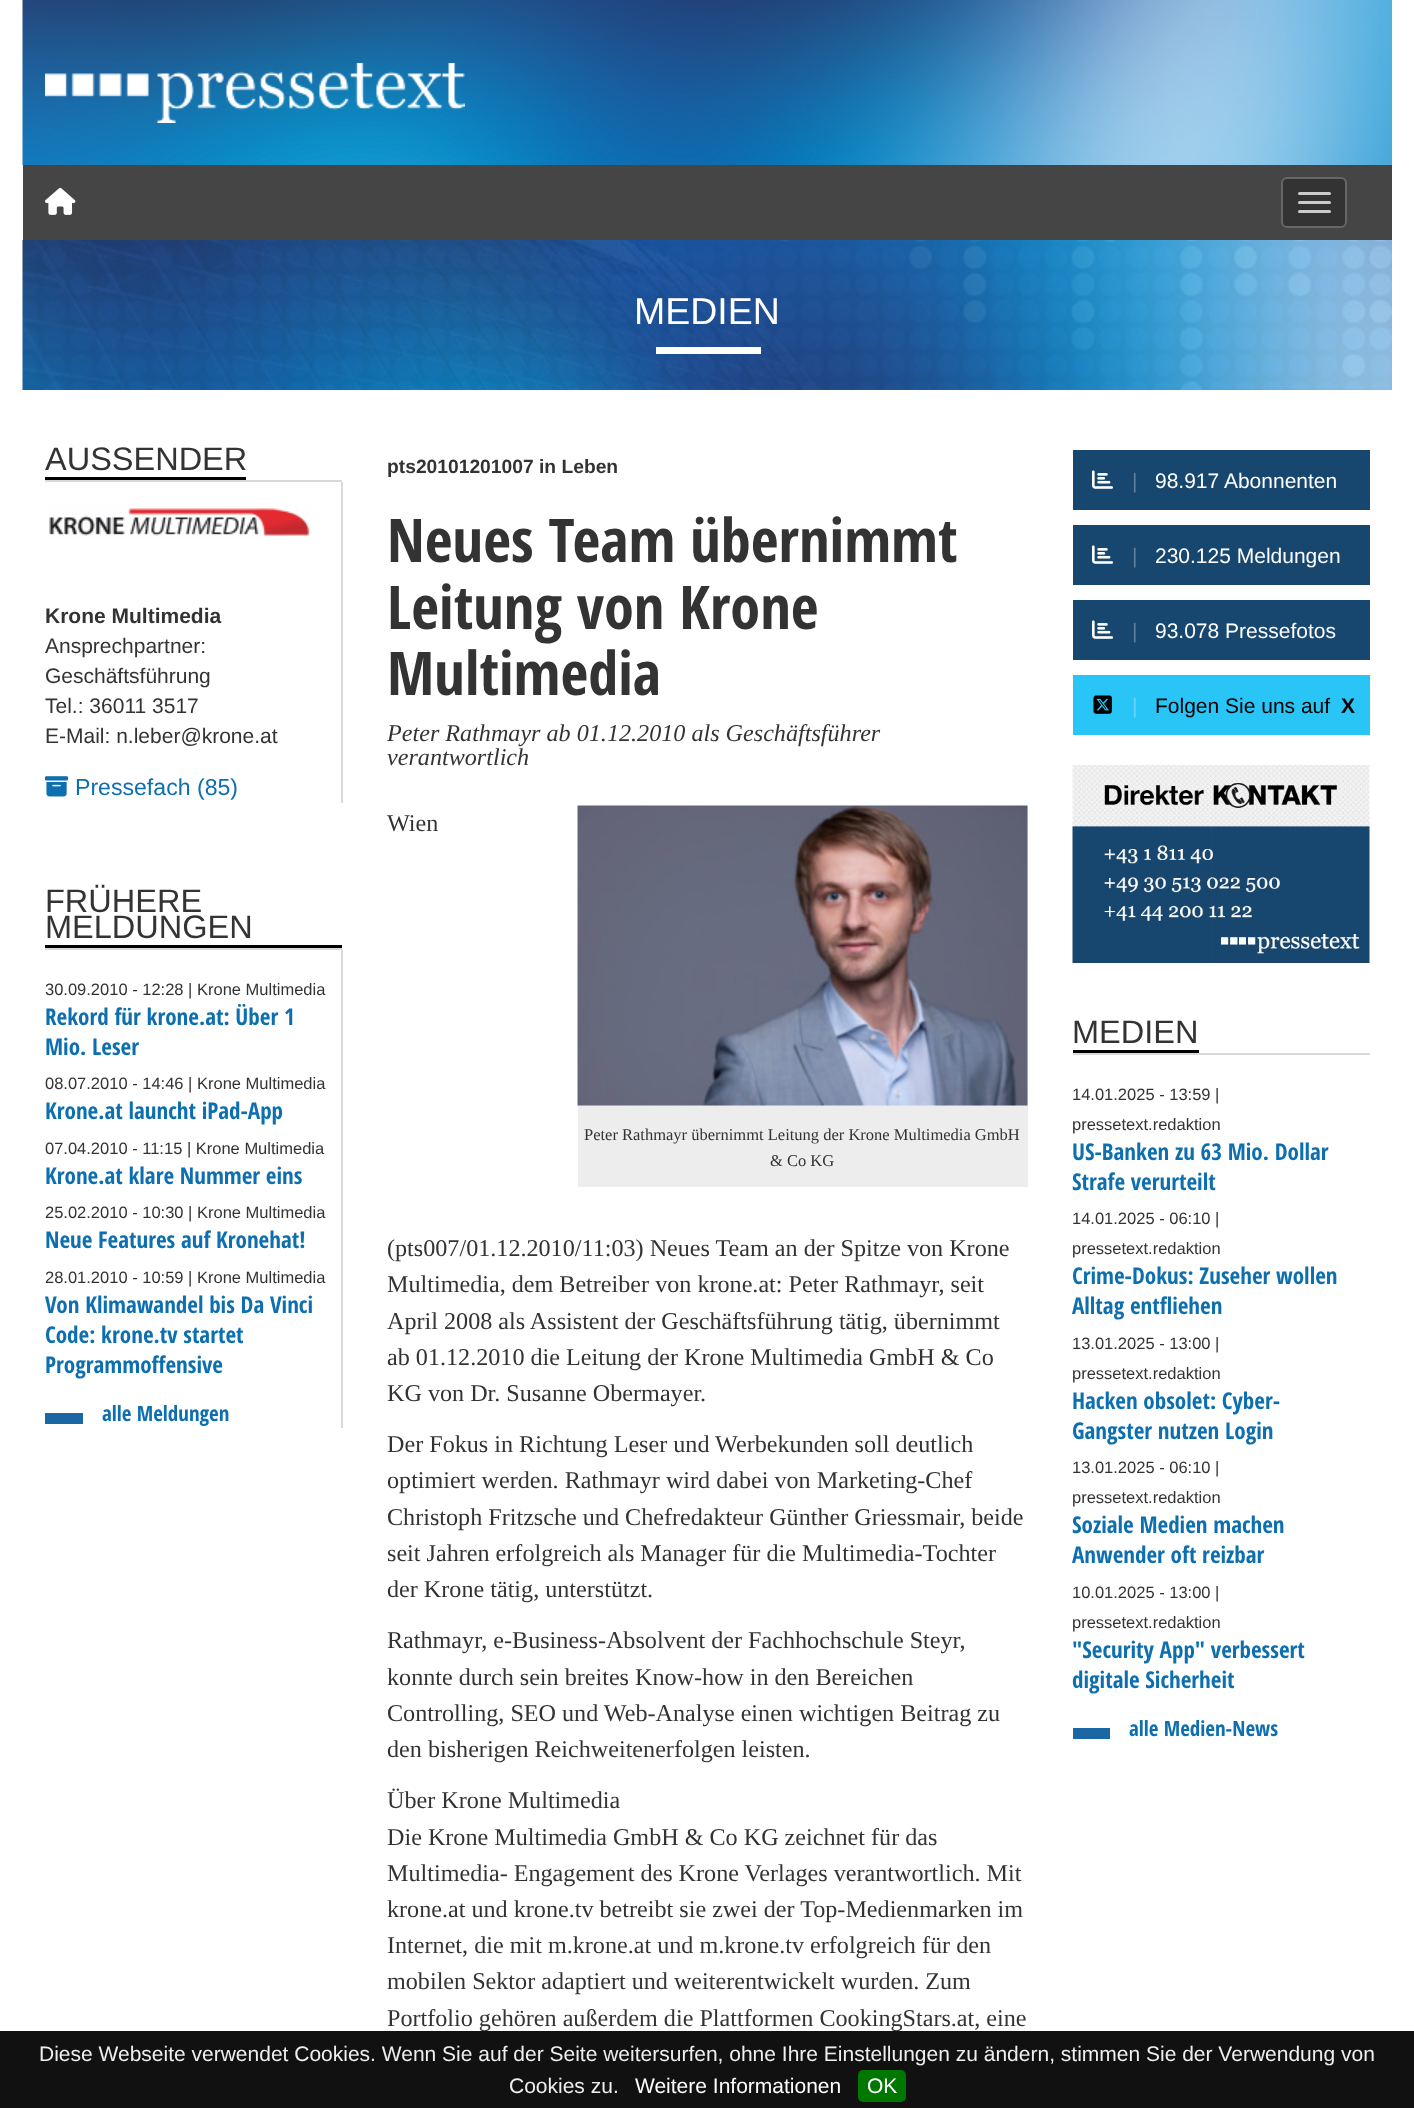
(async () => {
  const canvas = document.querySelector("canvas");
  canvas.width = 1414;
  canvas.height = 2108;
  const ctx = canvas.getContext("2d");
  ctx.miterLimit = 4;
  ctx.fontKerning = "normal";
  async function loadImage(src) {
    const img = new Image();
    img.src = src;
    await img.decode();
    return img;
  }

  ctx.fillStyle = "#ffffff";
  ctx.fillRect(0, 0, 1414, 2108);
  ctx.drawImage(await loadImage("img/1.png"), 22, 0, 1370, 165);
  ctx.drawImage(await loadImage("img/2.png"), 45, 63, 420, 60);
  ctx.fillStyle = "#464545";
  ctx.fillRect(23, 165, 1369, 75);
  ctx.drawImage(await loadImage("img/3.png"), 45, 187, 31, 28);
  ctx.fillStyle = "#333333";
  ctx.beginPath();
  ctx.roundRect(1282, 178, 64, 49, 5);
  ctx.fill();
  ctx.strokeStyle = "#666666";
  ctx.lineWidth = 2;
  ctx.stroke();
  ctx.fillStyle = "#cccccc";
  ctx.beginPath();
  ctx.roundRect(1298, 192, 33, 3, 1.5);
  ctx.fill();
  ctx.beginPath();
  ctx.roundRect(1298, 201, 33, 3, 1.5);
  ctx.fill();
  ctx.beginPath();
  ctx.roundRect(1298, 210, 33, 3, 1.5);
  ctx.fill();
  ctx.drawImage(await loadImage("img/4.png"), 22, 240, 1370, 150);
  for (const [x, y, w, h, color] of [
    [656, 347, 105, 7, "#ffffff"],
    [45, 480, 297, 2, "#d9d9d9"],
    [45, 477, 201, 3, "#000000"],
    [341, 482, 2, 321, "#d9d9d9"],
  ]) {
    ctx.fillStyle = color;
    ctx.fillRect(x, y, w, h);
  }
  ctx.drawImage(await loadImage("img/5.png"), 49, 505, 261, 34);
  ctx.drawImage(await loadImage("img/6.png"), 45, 776, 24, 21);
  for (const [x, y, w, h, color] of [
    [45, 948, 297, 2, "#d9d9d9"],
    [45, 945, 297, 3, "#000000"],
    [341, 950, 2, 478, "#d9d9d9"],
    [45, 1413, 38, 11, "#1b67a3"],
    [578, 806, 450, 381, "#ededed"],
  ]) {
    ctx.fillStyle = color;
    ctx.fillRect(x, y, w, h);
  }
  ctx.drawImage(await loadImage("img/7.png"), 577, 805, 451, 301);
  ctx.fillStyle = "#17476f";
  ctx.fillRect(1073, 450, 297, 60);
  ctx.drawImage(await loadImage("img/8.png"), 1092, 470, 21, 19);
  ctx.fillRect(1073, 525, 297, 60);
  ctx.drawImage(await loadImage("img/8.png"), 1092, 545, 21, 19);
  ctx.fillRect(1073, 600, 297, 60);
  ctx.drawImage(await loadImage("img/8.png"), 1092, 620, 21, 19);
  ctx.fillStyle = "#29c5f6";
  ctx.fillRect(1073, 675, 297, 60);
  ctx.drawImage(await loadImage("img/9.png"), 1093, 695, 19, 19);
  ctx.drawImage(await loadImage("img/10.png"), 1072, 765, 298, 198);
  for (const [x, y, w, h, color] of [
    [1073, 1053, 297, 2, "#d9d9d9"],
    [1073, 1050, 126, 3, "#000000"],
    [1073, 1728, 37, 11, "#1b67a3"],
  ]) {
    ctx.fillStyle = color;
    ctx.fillRect(x, y, w, h);
  }
  ctx.font = "37.5px Liberation Sans";
  ctx.fillStyle = "#ffffff";
  ctx.fillText("MEDIEN", 634, 324);
  ctx.font = "32.5px Liberation Sans";
  ctx.fillStyle = "#333333";
  ctx.fillText("AUSSENDER", 45, 470);
  ctx.font = "bold 21px Liberation Sans";
  ctx.fillText("Krone Multimedia", 45, 623);
  ctx.font = "21px Liberation Sans";
  for (const [text, x, y] of [
    ["Ansprechpartner:", 45, 653],
    ["Geschäftsführung", 45, 683],
    ["Tel.: 36011 3517", 45, 713],
    ["E-Mail: n.leber@krone.at", 45, 743],
  ]) {
    ctx.fillText(text, x, y);
  }
  ctx.font = "23.1px Liberation Sans";
  ctx.fillStyle = "#0d6fb0";
  ctx.fillText("Pressefach (85)", 75, 795);
  ctx.font = "32.5px Liberation Sans";
  ctx.fillStyle = "#333333";
  ctx.fillText("FRÜHERE", 45, 912);
  ctx.fillText("MELDUNGEN", 45, 938);
  ctx.font = "16.5px Liberation Sans";
  ctx.fillText("30.09.2010 - 12:28 | Krone Multimedia", 45, 995);
  ctx.font = "bold 23.1px Open Sans Condensed";
  ctx.fillStyle = "#0d6fb0";
  ctx.fillText("Rekord für krone.at: Über 1", 45, 1025);
  ctx.fillText("Mio. Leser", 45, 1055);
  ctx.font = "16.5px Liberation Sans";
  ctx.fillStyle = "#333333";
  ctx.fillText("08.07.2010 - 14:46 | Krone Multimedia", 45, 1089);
  ctx.font = "bold 23.1px Open Sans Condensed";
  ctx.fillStyle = "#0d6fb0";
  ctx.fillText("Krone.at launcht iPad-App", 45, 1119);
  ctx.font = "16.5px Liberation Sans";
  ctx.fillStyle = "#333333";
  ctx.fillText("07.04.2010 - 11:15 | Krone Multimedia", 45, 1154);
  ctx.font = "bold 23.1px Open Sans Condensed";
  ctx.fillStyle = "#0d6fb0";
  ctx.fillText("Krone.at klare Nummer eins", 45, 1184);
  ctx.font = "16.5px Liberation Sans";
  ctx.fillStyle = "#333333";
  ctx.fillText("25.02.2010 - 10:30 | Krone Multimedia", 45, 1218);
  ctx.font = "bold 23.1px Open Sans Condensed";
  ctx.fillStyle = "#0d6fb0";
  ctx.fillText("Neue Features auf Kronehat!", 45, 1248);
  ctx.font = "16.5px Liberation Sans";
  ctx.fillStyle = "#333333";
  ctx.fillText("28.01.2010 - 10:59 | Krone Multimedia", 45, 1283);
  ctx.font = "bold 23.1px Open Sans Condensed";
  ctx.fillStyle = "#0d6fb0";
  for (const [text, x, y] of [
    ["Von Klimawandel bis Da Vinci", 45, 1313],
    ["Code: krone.tv startet", 45, 1343],
    ["Programmoffensive", 45, 1373],
  ]) {
    ctx.fillText(text, x, y);
  }
  ctx.font = "bold 21px Open Sans Condensed";
  ctx.fillText("alle Meldungen", 102, 1421);
  ctx.font = "bold 19.25px Liberation Sans";
  ctx.fillStyle = "#333333";
  ctx.fillText("pts20101201007 in Leben", 387, 473);
  ctx.font = "bold 60.4px Open Sans Condensed";
  for (const [text, x, y] of [
    ["Neues Team übernimmt", 387, 562],
    ["Leitung von Krone", 387, 629],
    ["Multimedia", 387, 695],
  ]) {
    ctx.fillText(text, x, y);
  }
  ctx.font = "italic 24.15px Liberation Serif";
  ctx.fillText("Peter Rathmayr ab 01.12.2010 als Geschäftsführer", 387, 741);
  ctx.fillText("verantwortlich", 387, 765);
  ctx.font = "24.15px Liberation Serif";
  for (const [text, x, y] of [
    ["Wien", 387, 831],
    ["(pts007/01.12.2010/11:03) Neues Team an der Spitze von Krone", 387, 1256],
    ["Multimedia, dem Betreiber von krone.at: Peter Rathmayr, seit", 387, 1292],
    ["April 2008 als Assistent der Geschäftsführung tätig, übernimmt", 387, 1329],
    ["ab 01.12.2010 die Leitung der Krone Multimedia GmbH & Co", 387, 1365],
    ["KG von Dr. Susanne Obermayer.", 387, 1401],
  ]) {
    ctx.fillText(text, x, y);
  }
  ctx.font = "16.5px Liberation Serif";
  ctx.fillText("Peter Rathmayr übernimmt Leitung der Krone Multimedia GmbH", 584, 1140);
  ctx.fillText("& Co KG", 770, 1166);
  ctx.font = "24.15px Liberation Serif";
  for (const [text, x, y] of [
    ["Der Fokus in Richtung Leser und Werbekunden soll deutlich", 387, 1452],
    ["optimiert werden. Rathmayr wird dabei von Marketing-Chef", 387, 1488],
    ["Christoph Fritzsche und Chefredakteur Günther Griessmair, beide", 387, 1525],
    ["seit Jahren erfolgreich als Manager für die Multimedia-Tochter", 387, 1561],
    ["der Krone tätig, unterstützt.", 387, 1597],
    ["Rathmayr, e-Business-Absolvent der Fachhochschule Steyr,", 387, 1648],
    ["konnte durch sein breites Know-how in den Bereichen", 387, 1685],
    ["Controlling, SEO und Web-Analyse einen wichtigen Beitrag zu", 387, 1721],
    ["den bisherigen Reichweitenerfolgen leisten.", 387, 1757],
    ["Über Krone Multimedia", 387, 1808],
    ["Die Krone Multimedia GmbH & Co KG zeichnet für das", 387, 1845],
    ["Multimedia- Engagement des Krone Verlages verantwortlich. Mit", 387, 1881],
    ["krone.at und krone.tv betreibt sie zwei der Top-Medienmarken im", 387, 1917],
    ["Internet, die mit m.krone.at und m.krone.tv erfolgreich für den", 387, 1953],
    ["mobilen Sektor adaptiert und weiterentwickelt wurden. Zum", 387, 1989],
    ["Portfolio gehören außerdem die Plattformen CookingStars.at, eine", 387, 2026],
  ]) {
    ctx.fillText(text, x, y);
  }
  ctx.font = "21px Liberation Sans";
  ctx.fillStyle = "#5d7e9a";
  ctx.fillText("|", 1132, 488);
  ctx.fillStyle = "#ffffff";
  ctx.fillText("98.917 Abonnenten", 1155, 488);
  ctx.fillStyle = "#5d7e9a";
  ctx.fillText("|", 1132, 563);
  ctx.fillStyle = "#ffffff";
  ctx.fillText("230.125 Meldungen", 1155, 563);
  ctx.fillStyle = "#5d7e9a";
  ctx.fillText("|", 1132, 638);
  ctx.fillStyle = "#ffffff";
  ctx.fillText("93.078 Pressefotos", 1155, 638);
  ctx.fillStyle = "#69d6f9";
  ctx.fillText("|", 1132, 713);
  ctx.fillStyle = "#000000";
  ctx.fillText("Folgen Sie uns auf", 1155, 713);
  ctx.font = "bold 21px Liberation Sans";
  ctx.fillText("X", 1341, 713);
  ctx.font = "32.5px Liberation Sans";
  ctx.fillStyle = "#333333";
  ctx.fillText("MEDIEN", 1072, 1043);
  ctx.font = "16.5px Liberation Sans";
  ctx.fillText("14.01.2025 - 13:59 |", 1072, 1100);
  ctx.fillText("pressetext.redaktion", 1072, 1130);
  ctx.font = "bold 23.1px Open Sans Condensed";
  ctx.fillStyle = "#0d6fb0";
  ctx.fillText("US-Banken zu 63 Mio. Dollar", 1072, 1160);
  ctx.fillText("Strafe verurteilt", 1072, 1190);
  ctx.font = "16.5px Liberation Sans";
  ctx.fillStyle = "#333333";
  ctx.fillText("14.01.2025 - 06:10 |", 1072, 1224);
  ctx.fillText("pressetext.redaktion", 1072, 1254);
  ctx.font = "bold 23.1px Open Sans Condensed";
  ctx.fillStyle = "#0d6fb0";
  ctx.fillText("Crime-Dokus: Zuseher wollen", 1072, 1284);
  ctx.fillText("Alltag entfliehen", 1072, 1314);
  ctx.font = "16.5px Liberation Sans";
  ctx.fillStyle = "#333333";
  ctx.fillText("13.01.2025 - 13:00 |", 1072, 1349);
  ctx.fillText("pressetext.redaktion", 1072, 1379);
  ctx.font = "bold 23.1px Open Sans Condensed";
  ctx.fillStyle = "#0d6fb0";
  ctx.fillText("Hacken obsolet: Cyber-", 1072, 1409);
  ctx.fillText("Gangster nutzen Login", 1072, 1439);
  ctx.font = "16.5px Liberation Sans";
  ctx.fillStyle = "#333333";
  ctx.fillText("13.01.2025 - 06:10 |", 1072, 1473);
  ctx.fillText("pressetext.redaktion", 1072, 1503);
  ctx.font = "bold 23.1px Open Sans Condensed";
  ctx.fillStyle = "#0d6fb0";
  ctx.fillText("Soziale Medien machen", 1072, 1533);
  ctx.fillText("Anwender oft reizbar", 1072, 1563);
  ctx.font = "16.5px Liberation Sans";
  ctx.fillStyle = "#333333";
  ctx.fillText("10.01.2025 - 13:00 |", 1072, 1598);
  ctx.fillText("pressetext.redaktion", 1072, 1628);
  ctx.font = "bold 23.1px Open Sans Condensed";
  ctx.fillStyle = "#0d6fb0";
  ctx.fillText("\"Security App\" verbessert", 1072, 1658);
  ctx.fillText("digitale Sicherheit", 1072, 1688);
  ctx.font = "bold 21px Open Sans Condensed";
  ctx.fillText("alle Medien-News", 1129, 1736);
  ctx.fillStyle = "#111111";
  ctx.fillRect(0, 2031, 1414, 77);
  ctx.font = "21px Liberation Sans";
  ctx.fillStyle = "#eeeeee";
  ctx.fillText("Diese Webseite verwendet Cookies. Wenn Sie auf der Seite weitersurfen, ohne Ihre Einstellungen zu ändern, stimmen Sie der Verwendung von", 39, 2061);
  ctx.fillText("Cookies zu.", 509, 2093);
  ctx.fillStyle = "#ffffff";
  ctx.fillText("Weitere Informationen", 635, 2093);
  ctx.fillStyle = "#007700";
  ctx.beginPath();
  ctx.roundRect(858, 2070, 48, 32, 5);
  ctx.fill();
  ctx.fillStyle = "#ffffff";
  ctx.fillText("OK", 867, 2093);
})();
